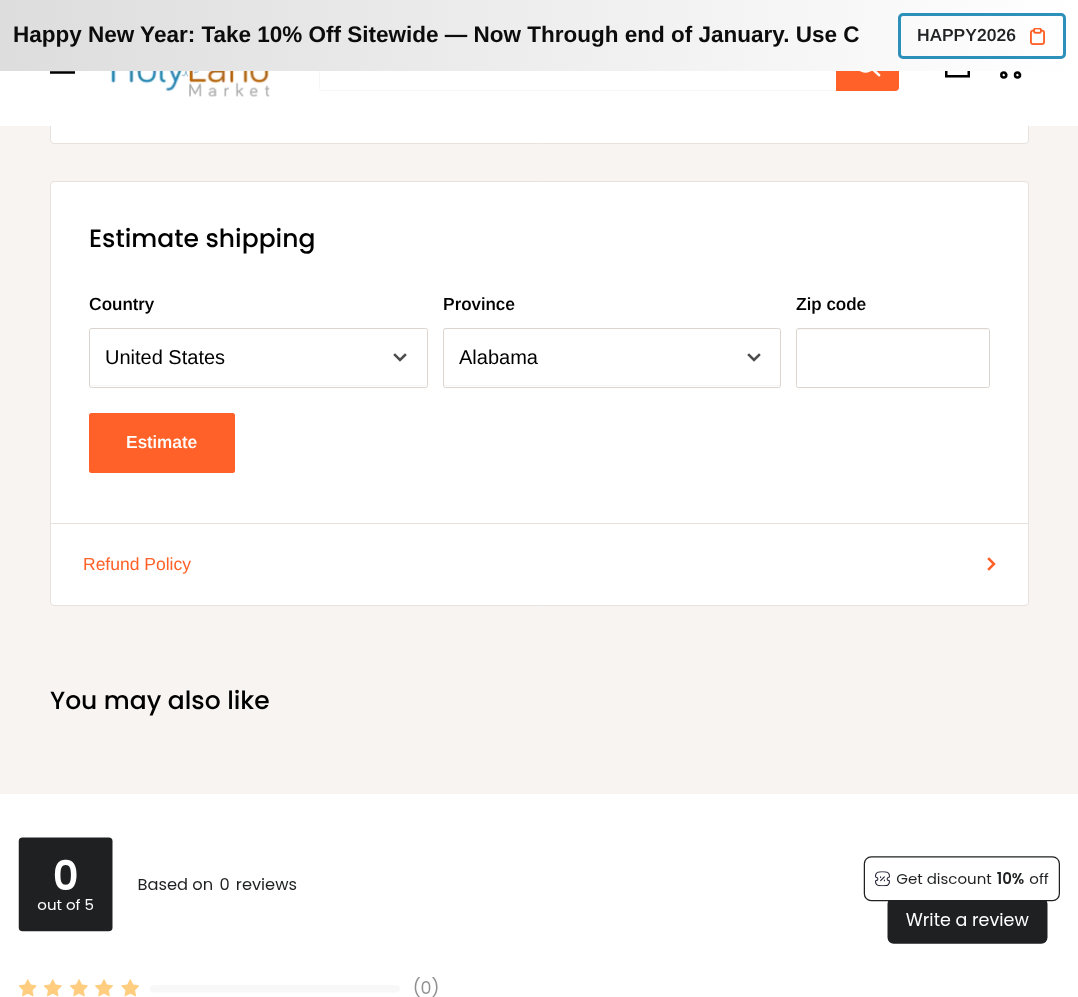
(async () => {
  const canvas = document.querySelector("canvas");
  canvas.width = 1078;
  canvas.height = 997;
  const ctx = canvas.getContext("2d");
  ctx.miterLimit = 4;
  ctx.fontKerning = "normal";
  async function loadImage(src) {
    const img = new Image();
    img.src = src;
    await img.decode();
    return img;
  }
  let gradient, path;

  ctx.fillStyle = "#f7f4f2";
  ctx.fillRect(0, 0, 1078, 997);
  ctx.fillStyle = "#ffffff";
  ctx.beginPath();
  ctx.roundRect(50.5, -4.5, 978, 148, 3.5);
  ctx.fill();
  ctx.strokeStyle = "#e7e2de";
  ctx.stroke();
  ctx.fillRect(0, 71, 1078, 55);
  ctx.fillStyle = "#f8f6f5";
  path = new Path2D("M320 90C321 91 322 91 323 91H895C897 91 899 89 899 87V40C899 39 898 37 897 37L898 39V86C898 88 896 90 894 90Z");
  ctx.fill(path);
  ctx.fillStyle = "rgba(233, 226, 221, 0.3)";
  path = new Path2D("M324 38H896L899 39C898 37 897 36 895 36H323C321 36 319 38 319 40V87C319 88 319 89 320 90V49C320 45 318 38 324 38Z");
  ctx.fill(path);
  ctx.fillStyle = "#ff6128";
  ctx.beginPath();
  ctx.roundRect(836, 36, 63, 55, [0, 4, 4, 0]);
  ctx.fill();
  path = new Path2D("M879 75L872.5 69");
  ctx.strokeStyle = "#ffffff";
  ctx.lineWidth = 2.5;
  ctx.lineCap = "square";
  ctx.stroke(path);
  ctx.beginPath();
  ctx.arc(865.5, 62, 9.5, 0, Math.PI * 2);
  ctx.stroke();
  gradient = ctx.createLinearGradient(0, 36, 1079, 36);
  gradient.addColorStop(0, "#dddddd");
  gradient.addColorStop(1, "#ffffff");
  ctx.fillStyle = gradient;
  ctx.fillRect(0, 0, 1078, 71);
  ctx.beginPath();
  ctx.roundRect(899.5, 14.5, 165, 43, 3.5);
  ctx.strokeStyle = "#2d90ba";
  ctx.lineWidth = 3;
  ctx.stroke();
  ctx.drawImage(await loadImage("img/1.png"), 1030, 28, 15, 17);
  ctx.drawImage(await loadImage("img/2.png"), 50, 71, 25, 3);
  ctx.drawImage(await loadImage("img/3.png"), 110, 71, 160, 26);
  ctx.drawImage(await loadImage("img/4.png"), 945, 71, 25, 7);
  ctx.beginPath();
  ctx.arc(1003.8, 75, 2.5, 0, Math.PI * 2);
  ctx.strokeStyle = "#000000";
  ctx.lineWidth = 2.5;
  ctx.stroke();
  ctx.beginPath();
  ctx.arc(1017.5, 75, 2.5, 0, Math.PI * 2);
  ctx.stroke();
  ctx.fillStyle = "#ffffff";
  ctx.beginPath();
  ctx.roundRect(50.5, 181.5, 978, 424, 3.5);
  ctx.fill();
  ctx.strokeStyle = "#e7e2de";
  ctx.lineWidth = 1;
  ctx.stroke();
  ctx.fillStyle = "#f8f6f5";
  path = new Path2D("M90 384V385C90 386 90 386 91 386H425C426 386 426 386 426 385V384L425 385H91Z");
  ctx.fill(path);
  ctx.beginPath();
  ctx.roundRect(89.5, 328.5, 338, 59, 2);
  ctx.strokeStyle = "#dcd5cf";
  ctx.stroke();
  path = new Path2D("M405 355L400 360L395 355");
  ctx.strokeStyle = "#4d4d4d";
  ctx.lineWidth = 2.5;
  ctx.stroke(path);
  path = new Path2D("M444 384V385C444 386 444 386 445 386H779C780 386 780 386 780 385V384L779 385H445Z");
  ctx.fill(path);
  ctx.beginPath();
  ctx.roundRect(443.5, 328.5, 337, 59, 2);
  ctx.strokeStyle = "#dcd5cf";
  ctx.lineWidth = 1;
  ctx.stroke();
  path = new Path2D("M759 355L754 360L749 355");
  ctx.strokeStyle = "#4d4d4d";
  ctx.lineWidth = 2.5;
  ctx.stroke(path);
  ctx.fillStyle = "#f9f8f7";
  path = new Path2D("M799 330H988L989 331C989 330 989 329 988 329H798V331Z");
  ctx.fill(path);
  ctx.beginPath();
  ctx.roundRect(796.5, 328.5, 193, 59, 2);
  ctx.strokeStyle = "#dcd5cf";
  ctx.lineWidth = 1;
  ctx.stroke();
  ctx.fillStyle = "#ff6128";
  ctx.beginPath();
  ctx.roundRect(89, 413, 146, 60, 2.5);
  ctx.fill();
  ctx.fillStyle = "#e7e2de";
  ctx.fillRect(51, 523, 977, 1);
  path = new Path2D("M989 559L994 564L989 569");
  ctx.strokeStyle = "#ff6128";
  ctx.lineWidth = 2.5;
  ctx.stroke(path);
  ctx.fillStyle = "#ffffff";
  ctx.fillRect(0, 794, 1078, 203);
  ctx.drawImage(await loadImage("img/5.png"), 18, 837, 1042, 160);
  ctx.font = "bold 22.5px Arimo";
  ctx.fillStyle = "#0d0c0c";
  ctx.fillText("Happy New Year: Take 10% Off Sitewide — Now Through end of January. Use C", 13, 42);
  ctx.font = "600 17.5px Arimo";
  ctx.fillStyle = "#202223";
  ctx.fillText("HAPPY2026", 917, 41);
  ctx.font = "500 25px Poppins";
  ctx.fillStyle = "#000000";
  ctx.fillText("Estimate shipping", 89, 247);
  ctx.font = "600 17.5px Arimo";
  ctx.fillText("Country", 89, 310);
  ctx.font = "20px Arimo";
  ctx.fillText("United States", 105, 364);
  ctx.font = "600 17.5px Arimo";
  ctx.fillText("Province", 443, 310);
  ctx.font = "20px Arimo";
  ctx.fillText("Alabama", 459, 364);
  ctx.font = "600 17.5px Arimo";
  ctx.fillText("Zip code", 796, 310);
  ctx.fillStyle = "#ffffff";
  ctx.fillText("Estimate", 126, 448);
  ctx.font = "17.5px Arimo";
  ctx.fillStyle = "#ff6128";
  ctx.fillText("Refund Policy", 83, 570);
  ctx.font = "500 25px Poppins";
  ctx.fillStyle = "#000000";
  ctx.fillText("You may also like", 50, 709);
})();
